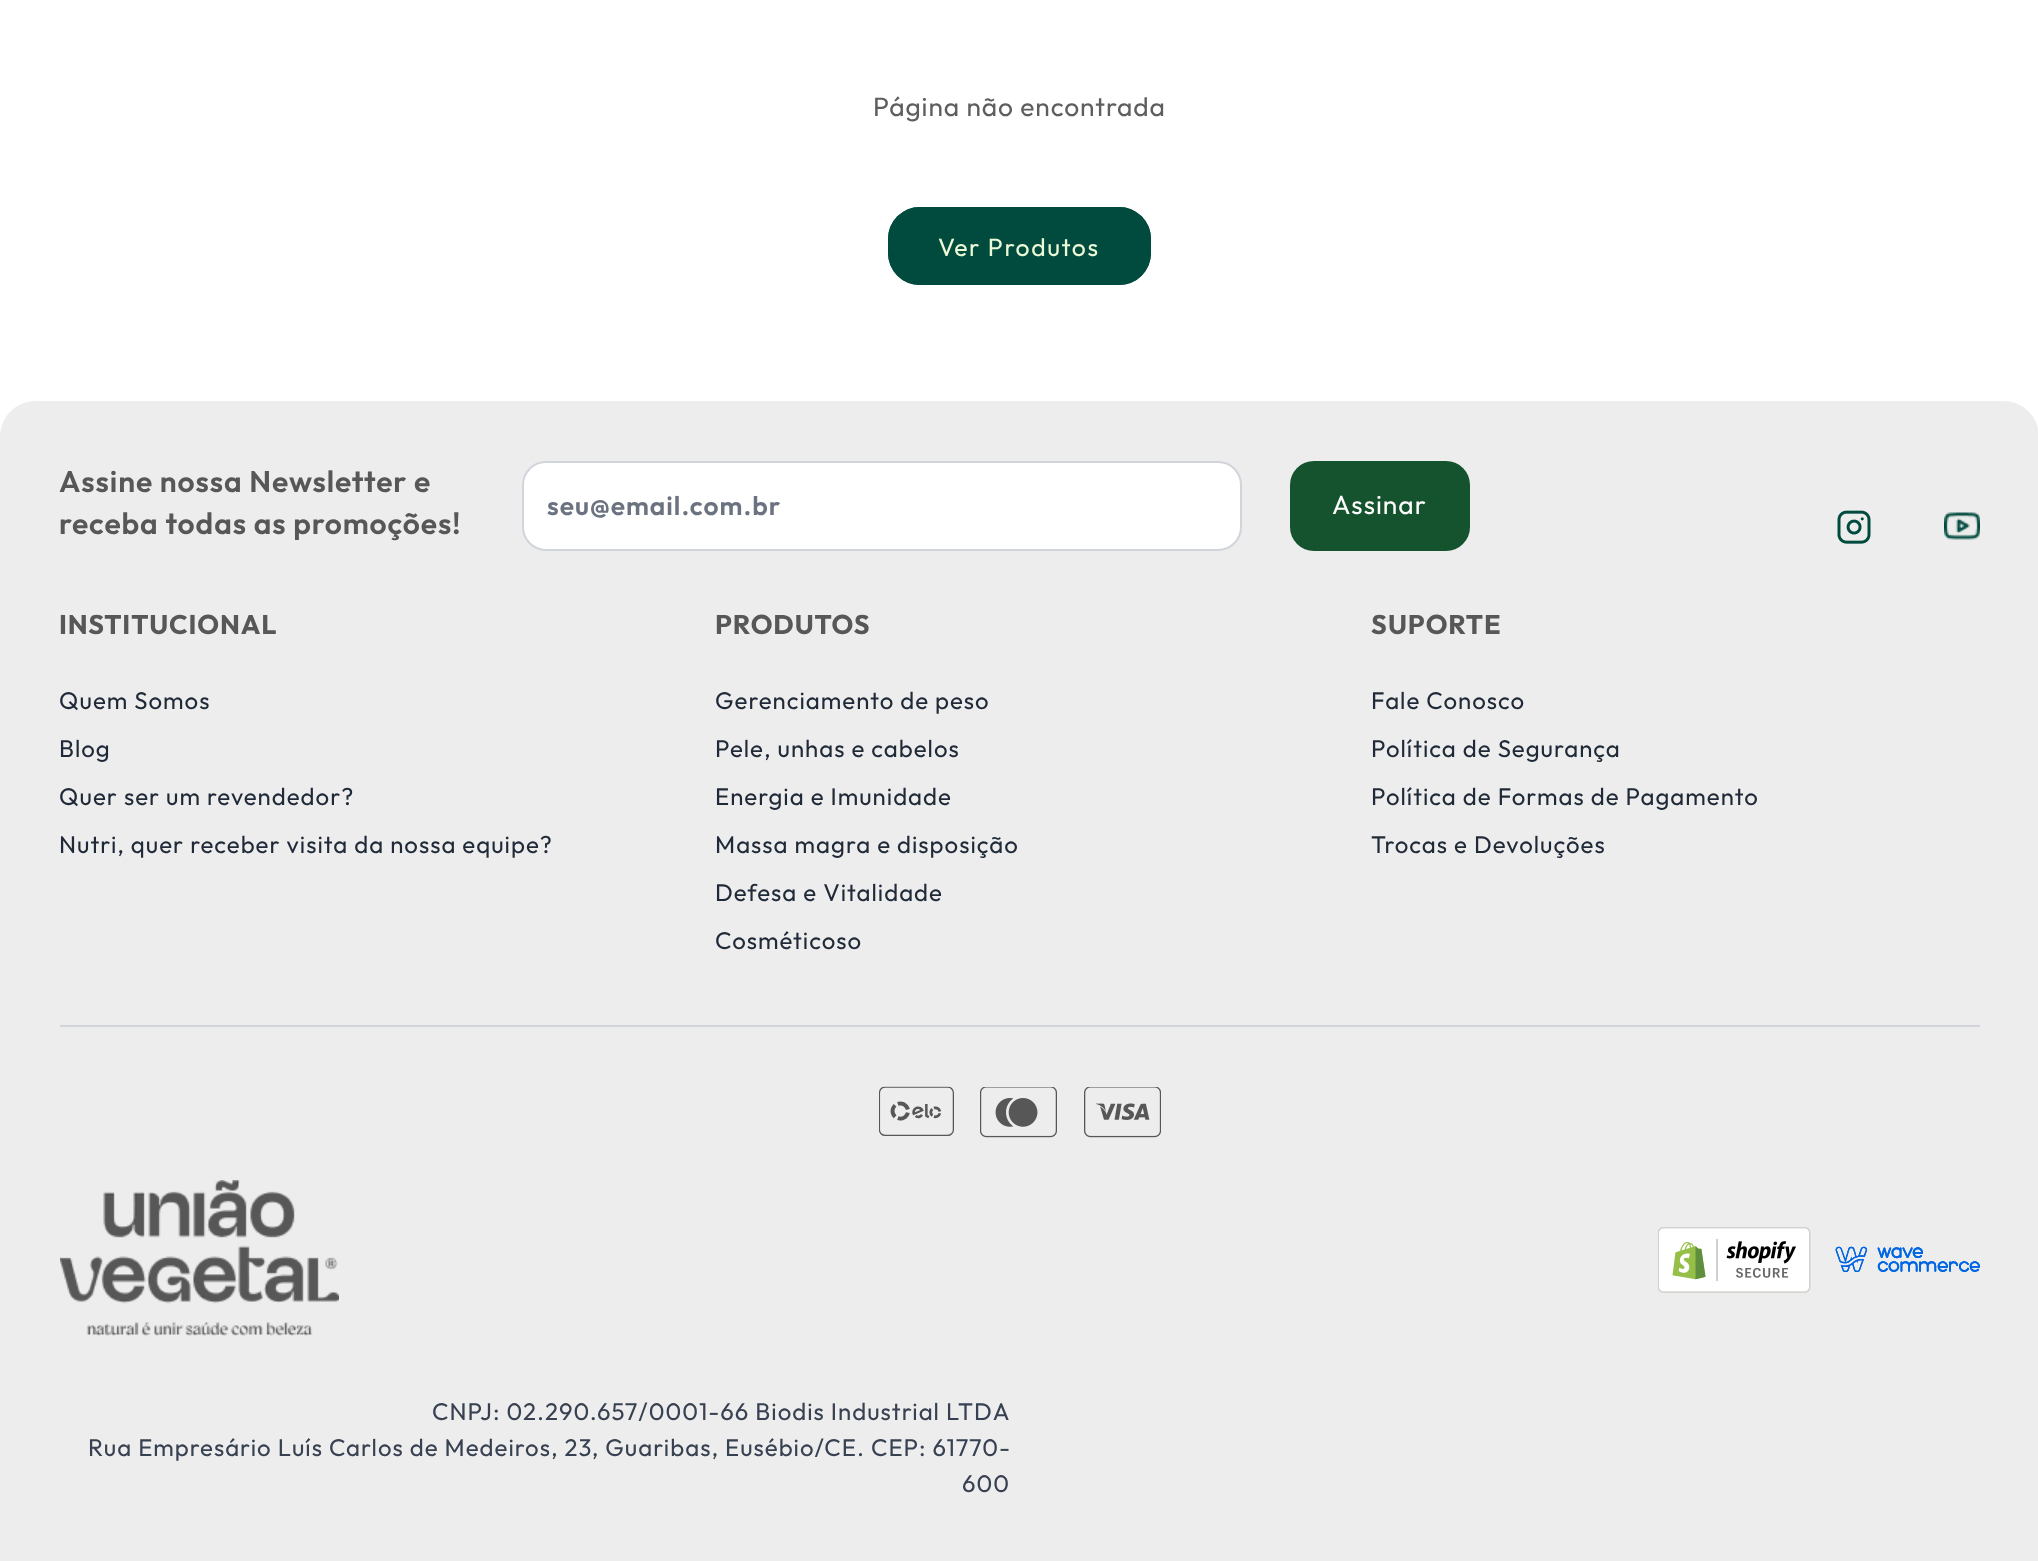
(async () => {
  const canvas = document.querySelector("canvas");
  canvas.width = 2038;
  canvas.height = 1561;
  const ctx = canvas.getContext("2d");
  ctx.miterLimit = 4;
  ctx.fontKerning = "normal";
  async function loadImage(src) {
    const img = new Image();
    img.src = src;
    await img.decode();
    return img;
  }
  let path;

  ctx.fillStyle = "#ffffff";
  ctx.fillRect(0, 0, 2038, 1561);
  ctx.fillStyle = "#014b3e";
  ctx.beginPath();
  ctx.roundRect(888, 207, 263, 78, 32);
  ctx.fill();
  ctx.beginPath();
  ctx.roundRect(889, 208, 261, 76, 31);
  ctx.strokeStyle = "#014b3e";
  ctx.lineWidth = 2;
  ctx.stroke();
  ctx.fillStyle = "#ededed";
  path = new Path2D("M36 401H2003C2023 401 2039 417 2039 437V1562H0V437C0 417 16 401 36 401Z");
  ctx.fill(path);
  ctx.fillStyle = "#ffffff";
  ctx.beginPath();
  ctx.roundRect(523, 462, 718, 88, 23);
  ctx.fill();
  ctx.strokeStyle = "#d1d5db";
  ctx.stroke();
  ctx.fillStyle = "#14532d";
  ctx.beginPath();
  ctx.roundRect(1290, 461, 180, 90, 24);
  ctx.fill();
  ctx.drawImage(await loadImage("img/1.png"), 1837, 510, 34, 34);
  ctx.drawImage(await loadImage("img/2.png"), 1944, 512, 36, 28);
  ctx.fillStyle = "#d1d5db";
  ctx.fillRect(60, 1025, 1920, 2);
  ctx.drawImage(await loadImage("img/3.png"), 879, 1086, 75, 50);
  ctx.drawImage(await loadImage("img/4.png"), 980, 1087, 77, 51);
  ctx.drawImage(await loadImage("img/5.png"), 1084, 1087, 77, 51);
  ctx.drawImage(await loadImage("img/6.png"), 60, 1180, 279, 157);
  ctx.drawImage(await loadImage("img/7.png"), 1658, 1227, 153, 66);
  ctx.drawImage(await loadImage("img/8.png"), 1835, 1246, 145, 26);
  ctx.letterSpacing = "0.9px";
  ctx.font = "26.4px Outfit";
  ctx.fillStyle = "#5e5e5e";
  ctx.fillText("Página não encontrada", 873, 116);
  ctx.letterSpacing = "1.6px";
  ctx.font = "24.75px Outfit";
  ctx.fillStyle = "#ecf9d7";
  ctx.fillText("Ver Produtos", 938, 256);
  ctx.letterSpacing = "0.9px";
  ctx.font = "600 30px Outfit";
  ctx.fillStyle = "#575757";
  ctx.fillText("Assine nossa Newsletter e", 59, 492);
  ctx.fillText("receba todas as promoções!", 59, 534);
  ctx.letterSpacing = "1px";
  ctx.font = "600 26.4px Outfit";
  ctx.fillStyle = "#6b7280";
  ctx.fillText("seu@email.com.br", 547, 515);
  ctx.font = "26.4px Outfit";
  ctx.fillStyle = "#ffffff";
  ctx.fillText("Assinar", 1332, 514);
  ctx.letterSpacing = "0.9px";
  ctx.font = "bold 27px Outfit";
  ctx.fillStyle = "#575757";
  ctx.fillText("INSTITUCIONAL", 59, 634);
  ctx.letterSpacing = "1px";
  ctx.font = "24px Outfit";
  ctx.fillStyle = "#1f2937";
  for (const [text, x, y] of [
    ["Quem Somos", 59, 709],
    ["Blog", 59, 757],
    ["Quer ser um revendedor?", 59, 805],
    ["Nutri, quer receber visita da nossa equipe?", 59, 853],
  ]) {
    ctx.fillText(text, x, y);
  }
  ctx.letterSpacing = "0.9px";
  ctx.font = "bold 27px Outfit";
  ctx.fillStyle = "#575757";
  ctx.fillText("PRODUTOS", 715, 634);
  ctx.letterSpacing = "1px";
  ctx.font = "24px Outfit";
  ctx.fillStyle = "#1f2937";
  for (const [text, x, y] of [
    ["Gerenciamento de peso", 715, 709],
    ["Pele, unhas e cabelos", 715, 757],
    ["Energia e Imunidade", 715, 805],
    ["Massa magra e disposição", 715, 853],
    ["Defesa e Vitalidade", 715, 901],
    ["Cosméticoso", 715, 949],
  ]) {
    ctx.fillText(text, x, y);
  }
  ctx.letterSpacing = "0.9px";
  ctx.font = "bold 27px Outfit";
  ctx.fillStyle = "#575757";
  ctx.fillText("SUPORTE", 1371, 634);
  ctx.letterSpacing = "1px";
  ctx.font = "24px Outfit";
  ctx.fillStyle = "#1f2937";
  for (const [text, x, y] of [
    ["Fale Conosco", 1371, 709],
    ["Política de Segurança", 1371, 757],
    ["Política de Formas de Pagamento", 1371, 805],
    ["Trocas e Devoluções", 1371, 853],
  ]) {
    ctx.fillText(text, x, y);
  }
  ctx.fillStyle = "#374151";
  for (const [text, x, y] of [
    ["CNPJ: 02.290.657/0001-66 Biodis Industrial LTDA", 432, 1420],
    ["Rua Empresário Luís Carlos de Medeiros, 23, Guaribas, Eusébio/CE. CEP: 61770-", 88, 1456],
    ["600", 962, 1492],
  ]) {
    ctx.fillText(text, x, y);
  }
})();
